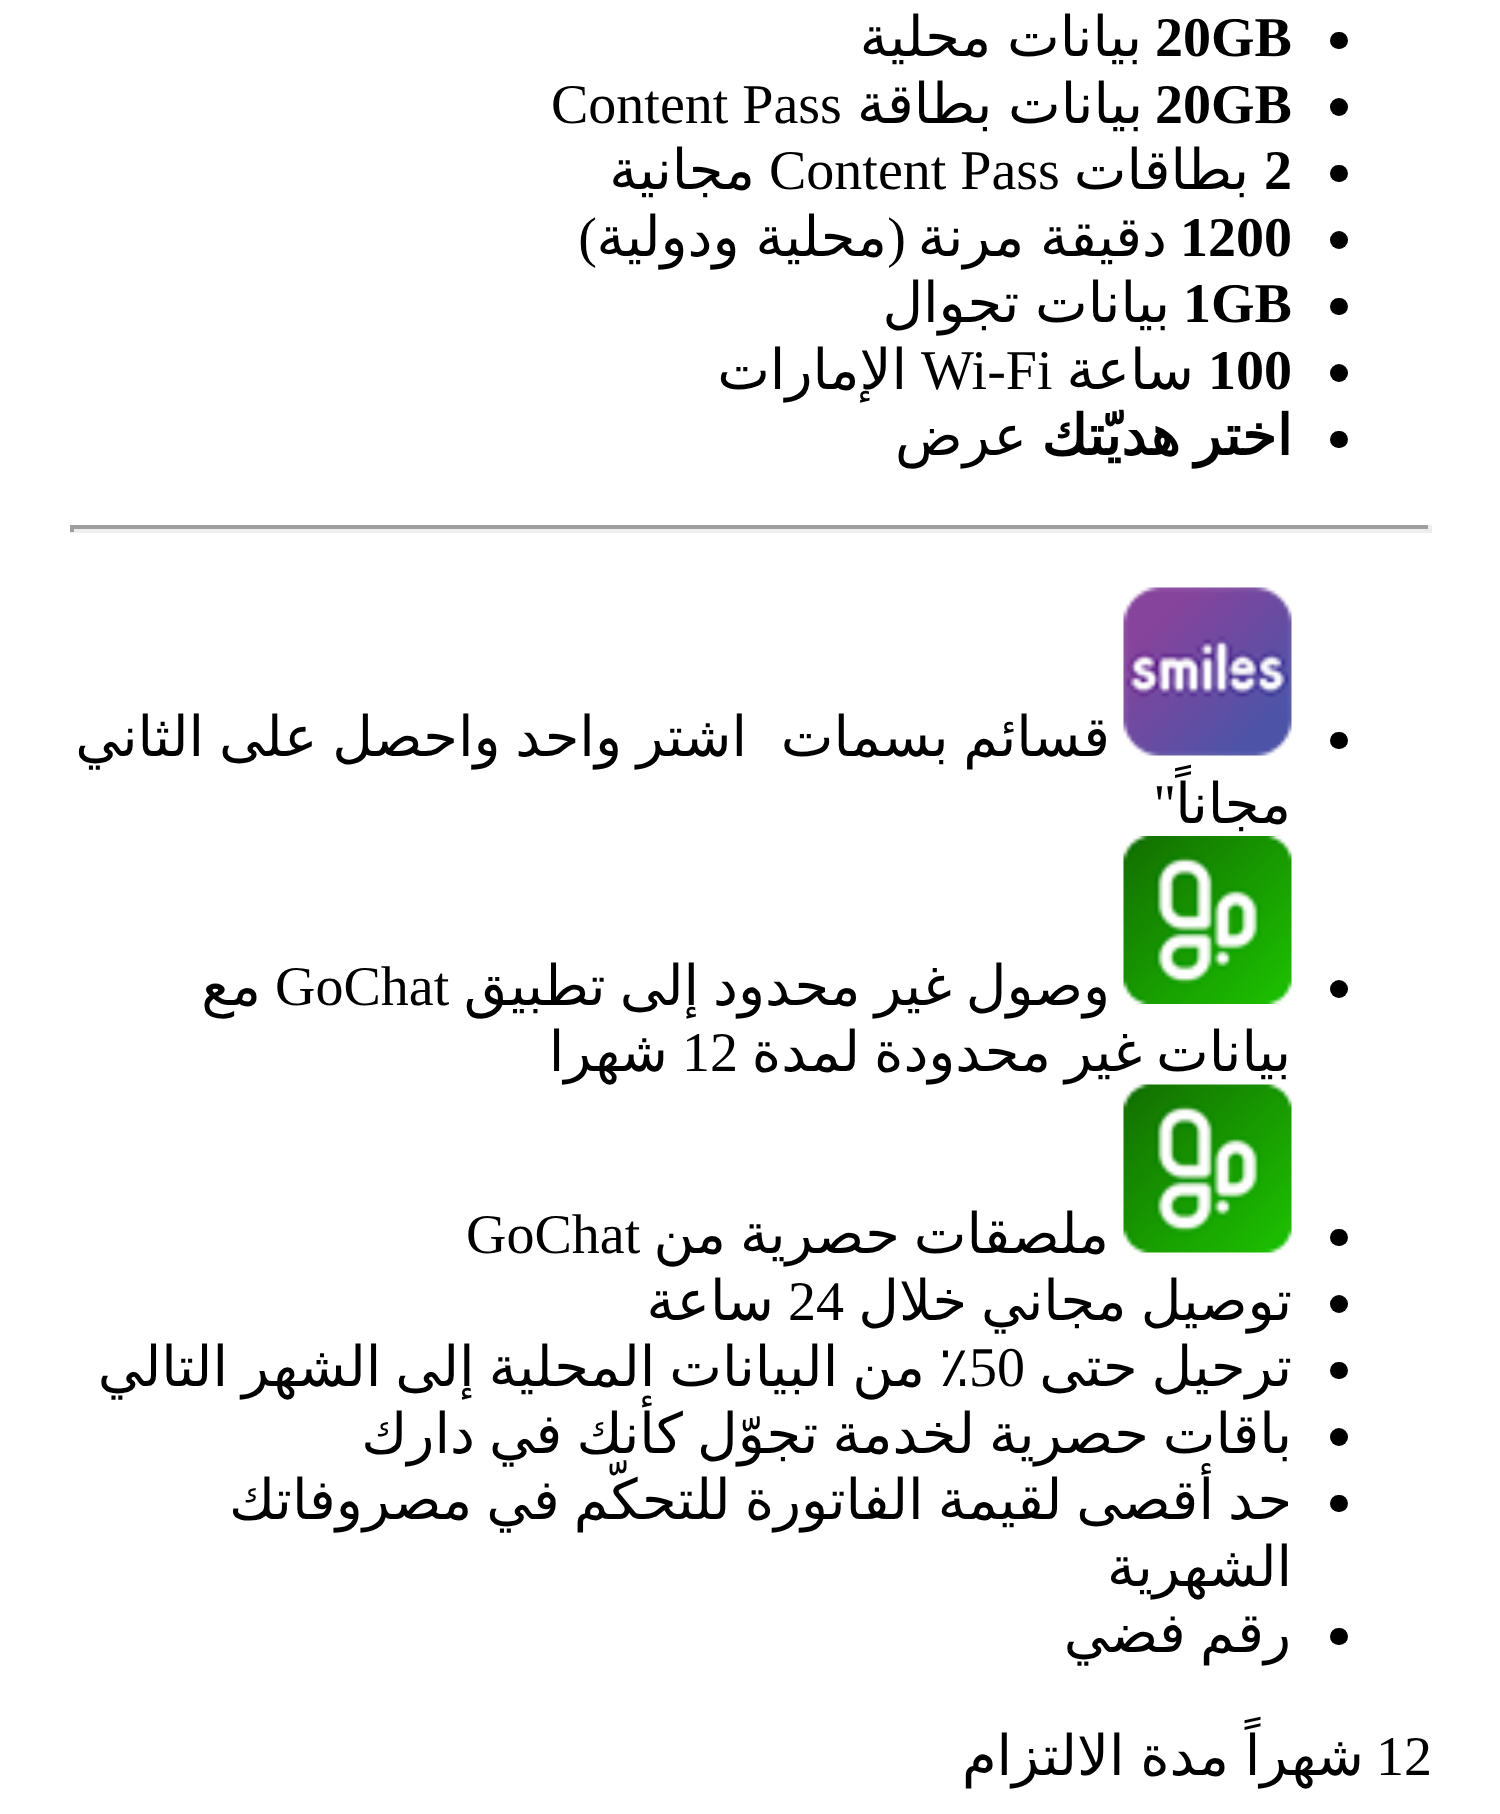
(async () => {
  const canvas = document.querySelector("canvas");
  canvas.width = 1500;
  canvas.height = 1814;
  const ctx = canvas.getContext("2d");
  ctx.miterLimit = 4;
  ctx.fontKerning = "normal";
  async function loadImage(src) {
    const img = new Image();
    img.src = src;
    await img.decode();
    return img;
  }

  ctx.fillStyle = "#ffffff";
  ctx.fillRect(0, 0, 1500, 1814);
  ctx.fillStyle = "#000000";
  ctx.beginPath();
  ctx.roundRect(1330, 32, 18, 17, 8.5);
  ctx.fill();
  ctx.beginPath();
  ctx.arc(1339, 107, 9, 0, Math.PI * 2);
  ctx.fill();
  ctx.beginPath();
  ctx.roundRect(1330, 165, 18, 17, 8.5);
  ctx.fill();
  ctx.beginPath();
  ctx.arc(1339, 240, 9, 0, Math.PI * 2);
  ctx.fill();
  ctx.beginPath();
  ctx.roundRect(1330, 298, 18, 17, 8.5);
  ctx.fill();
  ctx.beginPath();
  ctx.arc(1339, 373, 9, 0, Math.PI * 2);
  ctx.fill();
  ctx.beginPath();
  ctx.roundRect(1330, 431, 18, 17, 8.5);
  ctx.fill();
  for (const [x, y, w, h, color] of [
    [70, 525, 1362, 4, "#9f9f9f"],
    [1428, 525, 4, 7, "#eeeeee"],
    [70, 529, 1362, 4, "#eeeeee"],
    [70, 525, 4, 7, "#9f9f9f"],
  ]) {
    ctx.fillStyle = color;
    ctx.fillRect(x, y, w, h);
  }
  ctx.fillStyle = "#000000";
  ctx.beginPath();
  ctx.roundRect(1330, 732, 18, 17, 8.5);
  ctx.fill();
  ctx.drawImage(await loadImage("img/1.png"), 1123, 587, 169, 169);
  ctx.beginPath();
  ctx.arc(1339, 989, 9, 0, Math.PI * 2);
  ctx.fill();
  ctx.drawImage(await loadImage("img/2.png"), 1123, 836, 169, 168);
  ctx.beginPath();
  ctx.roundRect(1330, 1229, 18, 17, 8.5);
  ctx.fill();
  ctx.beginPath();
  ctx.arc(1339, 1304, 9, 0, Math.PI * 2);
  ctx.fill();
  ctx.beginPath();
  ctx.roundRect(1330, 1362, 18, 17, 8.5);
  ctx.fill();
  ctx.beginPath();
  ctx.arc(1339, 1437, 9, 0, Math.PI * 2);
  ctx.fill();
  ctx.beginPath();
  ctx.roundRect(1330, 1495, 18, 17, 8.5);
  ctx.fill();
  ctx.beginPath();
  ctx.roundRect(1330, 1628, 18, 17, 8.5);
  ctx.fill();
  ctx.font = "bold 56px Liberation Serif";
  ctx.fillText("20GB", 1155, 56);
  ctx.wordSpacing = "-2px";
  ctx.direction = "rtl";
  ctx.font = "56px DejaVu Sans";
  ctx.fillText("بيانات محلية", 1142, 56);
  ctx.wordSpacing = "0px";
  ctx.direction = "ltr";
  ctx.font = "bold 56px Liberation Serif";
  ctx.fillText("20GB", 1155, 123);
  ctx.wordSpacing = "-2px";
  ctx.direction = "rtl";
  ctx.font = "56px DejaVu Sans";
  ctx.fillText("بيانات بطاقة", 1143, 123);
  ctx.wordSpacing = "0px";
  ctx.direction = "ltr";
  ctx.font = "56px Liberation Serif";
  ctx.fillText("Content Pass", 551, 123);
  ctx.font = "bold 56px Liberation Serif";
  ctx.fillText("2", 1264, 189);
  ctx.direction = "rtl";
  ctx.font = "56px DejaVu Sans";
  ctx.fillText("بطاقات", 1249, 189);
  ctx.direction = "ltr";
  ctx.font = "56px Liberation Serif";
  ctx.fillText("Content Pass", 769, 189);
  ctx.direction = "rtl";
  ctx.font = "56px DejaVu Sans";
  ctx.fillText("مجانية", 755, 189);
  ctx.direction = "ltr";
  ctx.font = "bold 56px Liberation Serif";
  ctx.fillText("1200", 1180, 256);
  ctx.wordSpacing = "-2px";
  ctx.direction = "rtl";
  ctx.font = "56px DejaVu Sans";
  ctx.fillText("دقيقة مرنة", 1167, 256);
  ctx.wordSpacing = "0px";
  ctx.font = "56px Liberation Serif";
  ctx.fillText("(", 906, 256);
  ctx.wordSpacing = "-2px";
  ctx.font = "56px DejaVu Sans";
  ctx.fillText("محلية ودولية", 887, 256);
  ctx.wordSpacing = "0px";
  ctx.font = "56px Liberation Serif";
  ctx.fillText(")", 597, 256);
  ctx.direction = "ltr";
  ctx.font = "bold 56px Liberation Serif";
  ctx.fillText("1GB", 1183, 322);
  ctx.wordSpacing = "-2px";
  ctx.direction = "rtl";
  ctx.font = "56px DejaVu Sans";
  ctx.fillText("بيانات تجوال", 1170, 322);
  ctx.wordSpacing = "0px";
  ctx.direction = "ltr";
  ctx.font = "bold 56px Liberation Serif";
  ctx.fillText("100", 1208, 389);
  ctx.direction = "rtl";
  ctx.font = "56px DejaVu Sans";
  ctx.fillText("ساعة", 1194, 389);
  ctx.direction = "ltr";
  ctx.font = "56px Liberation Serif";
  ctx.fillText("Wi-Fi", 921, 389);
  ctx.direction = "rtl";
  ctx.font = "56px DejaVu Sans";
  ctx.fillText("الإمارات", 907, 389);
  ctx.wordSpacing = "-3.75px";
  ctx.font = "bold 56px DejaVu Sans";
  ctx.fillText("اختر هديّتك", 1292, 455);
  ctx.wordSpacing = "0px";
  ctx.font = "56px DejaVu Sans";
  ctx.fillText("عرض", 1027, 455);
  ctx.wordSpacing = "-3px";
  ctx.fillText("قسائم بسمات", 1110, 756);
  ctx.fillText("اشتر واحد واحصل على الثاني", 747, 756);
  ctx.wordSpacing = "0px";
  ctx.fillText("مجاناً", 1291, 823);
  ctx.font = "56px Liberation Serif";
  ctx.fillText("\"", 1176, 823);
  ctx.wordSpacing = "-3.75px";
  ctx.font = "56px DejaVu Sans";
  ctx.fillText("وصول غير محدود إلى تطبيق", 1110, 1005);
  ctx.wordSpacing = "0px";
  ctx.direction = "ltr";
  ctx.font = "56px Liberation Serif";
  ctx.fillText("GoChat", 275, 1005);
  ctx.direction = "rtl";
  ctx.font = "56px DejaVu Sans";
  ctx.fillText("مع", 261, 1005);
  ctx.wordSpacing = "-3.75px";
  ctx.fillText("بيانات غير محدودة لمدة", 1291, 1071);
  ctx.wordSpacing = "0px";
  ctx.direction = "ltr";
  ctx.font = "56px Liberation Serif";
  ctx.fillText("12", 682, 1071);
  ctx.direction = "rtl";
  ctx.font = "56px DejaVu Sans";
  ctx.fillText("شهرا", 668, 1071);
  ctx.drawImage(await loadImage("img/3.png"), 1123, 1084, 169, 169);
  ctx.wordSpacing = "-3.75px";
  ctx.fillText("ملصقات حصرية من", 1109, 1253);
  ctx.wordSpacing = "0px";
  ctx.direction = "ltr";
  ctx.font = "56px Liberation Serif";
  ctx.fillText("GoChat", 466, 1253);
  ctx.wordSpacing = "-3.75px";
  ctx.direction = "rtl";
  ctx.font = "56px DejaVu Sans";
  ctx.fillText("توصيل مجاني خلال", 1292, 1320);
  ctx.wordSpacing = "0px";
  ctx.direction = "ltr";
  ctx.font = "56px Liberation Serif";
  ctx.fillText("24", 788, 1320);
  ctx.direction = "rtl";
  ctx.font = "56px DejaVu Sans";
  ctx.fillText("ساعة", 774, 1320);
  ctx.wordSpacing = "-3.75px";
  ctx.fillText("ترحيل حتى", 1292, 1386);
  ctx.fillText("٪ من البيانات المحلية إلى الشهر التالي", 969, 1386);
  ctx.wordSpacing = "0px";
  ctx.direction = "ltr";
  ctx.font = "56px Liberation Serif";
  ctx.fillText("50", 969, 1386);
  ctx.wordSpacing = "-3.75px";
  ctx.direction = "rtl";
  ctx.font = "56px DejaVu Sans";
  ctx.fillText("باقات حصرية لخدمة تجوّل كأنك في دارك", 1292, 1453);
  ctx.fillText("حد أقصى لقيمة الفاتورة للتحكّم في مصروفاتك", 1292, 1519);
  ctx.wordSpacing = "0px";
  ctx.fillText("الشهرية", 1292, 1586);
  ctx.wordSpacing = "-3.75px";
  ctx.fillText("رقم فضي", 1291, 1652);
  ctx.wordSpacing = "0px";
  ctx.direction = "ltr";
  ctx.font = "56px Liberation Serif";
  ctx.fillText("12", 1376, 1775);
  ctx.wordSpacing = "-2px";
  ctx.direction = "rtl";
  ctx.font = "56px DejaVu Sans";
  ctx.fillText("شهراً مدة الالتزام", 1364, 1775);
})();
